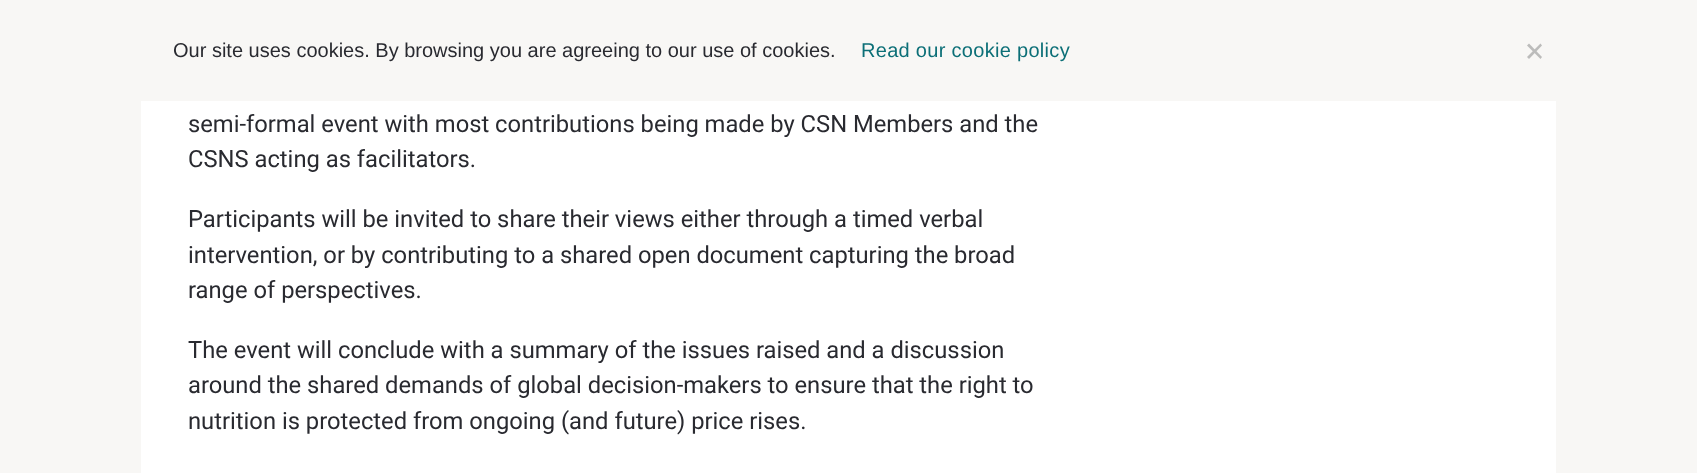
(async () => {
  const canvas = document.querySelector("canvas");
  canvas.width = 1697;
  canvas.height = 473;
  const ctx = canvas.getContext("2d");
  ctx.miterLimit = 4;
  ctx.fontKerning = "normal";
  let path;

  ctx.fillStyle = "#f8f7f5";
  ctx.fillRect(0, 0, 1697, 473);
  ctx.fillStyle = "#bcbcbb";
  path = new Path2D("M1540.5 43.5L1542 45.5L1529 59L1527 57Z");
  ctx.fill(path);
  path = new Path2D("M1527 45.5L1529 43.5L1542 57L1540.5 59Z");
  ctx.fill(path);
  ctx.fillStyle = "#ffffff";
  ctx.fillRect(141, 101, 1415, 372);
  ctx.font = "20px Liberation Sans";
  ctx.fillStyle = "#292a30";
  ctx.fillText("Our site uses cookies. By browsing you are agreeing to our use of cookies.", 173, 57);
  ctx.letterSpacing = "0.3px";
  ctx.fillStyle = "#0c6f77";
  ctx.fillText("Read our cookie policy", 861, 57);
  ctx.letterSpacing = "0px";
  ctx.font = "23.75px Roboto";
  ctx.fillStyle = "#292a30";
  for (const [text, x, y] of [
    ["semi-formal event with most contributions being made by CSN Members and the", 188, 132],
    ["CSNS acting as facilitators.", 188, 167],
    ["Participants will be invited to share their views either through a timed verbal", 188, 227],
    ["intervention, or by contributing to a shared open document capturing the broad", 188, 263],
    ["range of perspectives.", 188, 298],
    ["The event will conclude with a summary of the issues raised and a discussion", 188, 358],
    ["around the shared demands of global decision-makers to ensure that the right to", 188, 393],
    ["nutrition is protected from ongoing (and future) price rises.", 188, 429],
  ]) {
    ctx.fillText(text, x, y);
  }
})();
